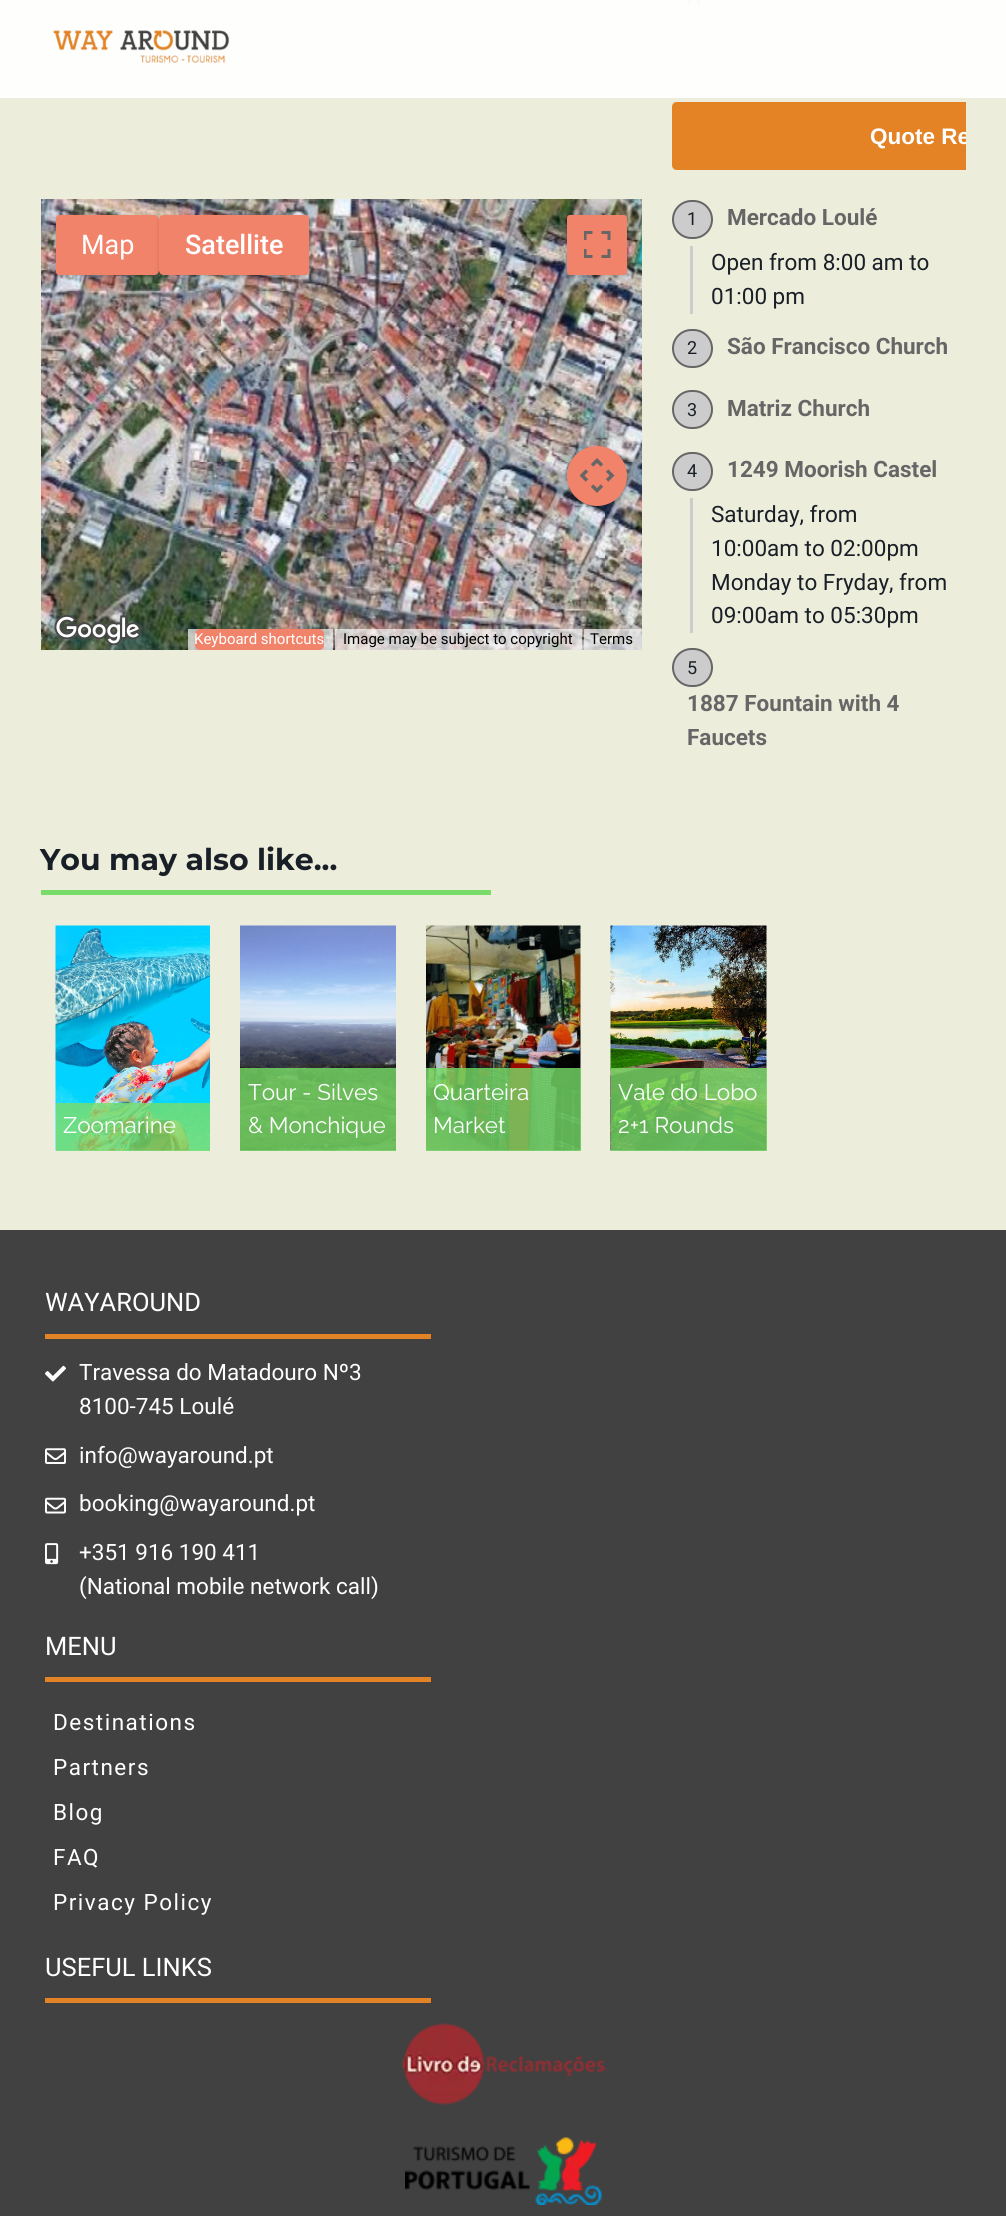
import math
import cairo



def draw_spaced(context, x, y, s, letter, word):
    context.move_to(x, y)
    for ch in s:
        context.show_text(ch)
        context.rel_move_to(letter + word * (ch == ' '), 0)


def rounded_rect(context, x, y, w, h, r):
    context.new_sub_path()
    for i, (u, v) in enumerate([(x + w - r, y + h - r), (x + r, y + h - r), (x + r, y + r), (x + w - r, y + r)]):
        context.arc(u, v, r, i * math.pi / 2, (i + 1) * math.pi / 2)
    context.close_path()


def draw_shadow(context, x, y, w, h, r, blur, alpha):
    context.push_group_with_content(cairo.Content.ALPHA)
    context.set_operator(cairo.Operator.SOURCE)
    for i in range(15, -16, -2):
        e = blur * i / 6
        if min(w, h) + 2 * e > 0:
            context.set_source_rgba(0, 0, 0, alpha * math.erfc((i - 1) / 8.5) / 2)
            rounded_rect(context, x - e, y - e, w + 2 * e, h + 2 * e, max(0, min(r + e + blur * .6, min(w, h) / 2 + e)))
            context.fill()
    context.mask(context.pop_group())


def draw_image(context, path, x, y, w, h):
    context.save()
    context.set_source_surface(cairo.ImageSurface.create_from_png(path), x, y)
    context.rectangle(x, y, w, h)
    context.fill()
    context.restore()


def draw(context):
    context.set_source_rgb(237 / 255, 237 / 255, 220 / 255)
    context.paint()
    context.set_source_rgb(254 / 255, 254 / 255, 253 / 255)
    context.rectangle(0, 0, 1006, 98)
    context.fill()
    draw_image(context, "images/1.png", 53, 30, 177, 33)
    draw_image(context, "images/2.png", 679, 0, 31, 5)
    context.set_source_rgb(227 / 255, 131 / 255, 37 / 255)
    context.new_path()
    context.move_to(677, 102)
    context.line_to(966, 102)
    context.line_to(966, 170)
    context.line_to(677, 170)
    context.curve_to(674, 170, 672, 168, 672, 165)
    context.line_to(672, 107)
    context.curve_to(672, 104, 674, 102, 677, 102)
    context.close_path()
    context.fill()
    draw_image(context, "images/3.png", 41, 199, 180, 263)
    draw_image(context, "images/4.png", 221, 199, 384, 263)
    draw_image(context, "images/5.png", 605, 199, 37, 263)
    draw_image(context, "images/6.png", 41, 462, 180, 188)
    draw_image(context, "images/7.png", 221, 462, 384, 188)
    draw_image(context, "images/8.png", 605, 462, 37, 188)
    context.set_source_rgb(0, 0, 0)
    draw_shadow(context, 57, 218, 101, 57, 3, 3, 0.3)
    context.set_source_rgb(242 / 255, 131 / 255, 107 / 255)
    context.new_path()
    context.move_to(59, 215)
    context.line_to(154, 215)
    context.curve_to(157, 215, 159, 217, 159, 220)
    context.line_to(159, 270)
    context.curve_to(159, 273, 157, 275, 154, 275)
    context.line_to(59, 275)
    context.curve_to(57.5, 275, 56, 273.5, 56, 272)
    context.line_to(56, 218)
    context.curve_to(56, 216.5, 57.5, 215, 59, 215)
    context.close_path()
    context.fill()
    context.set_source_rgb(0, 0, 0)
    draw_shadow(context, 161, 218, 147, 57, 3, 3, 0.3)
    context.set_source_rgb(242 / 255, 131 / 255, 107 / 255)
    context.new_path()
    context.move_to(164, 215)
    context.line_to(306, 215)
    context.curve_to(307.5, 215, 309, 216.5, 309, 218)
    context.line_to(309, 272)
    context.curve_to(309, 273.5, 307.5, 275, 306, 275)
    context.line_to(164, 275)
    context.curve_to(161, 275, 159, 273, 159, 270)
    context.line_to(159, 220)
    context.curve_to(159, 217, 161, 215, 164, 215)
    context.close_path()
    context.fill()
    context.set_source_rgb(0, 0, 0)
    draw_shadow(context, 569, 218, 57, 57, 1.5, 3, 0.3)
    context.set_source_rgb(242 / 255, 131 / 255, 107 / 255)
    rounded_rect(context, 567, 215, 60, 60, 3)
    context.fill()
    draw_image(context, "images/9.png", 584, 231, 27, 27)
    context.set_source_rgb(0, 0, 0)
    draw_shadow(context, 569, 449, 57, 57, 28.5, 3, 0.3)
    context.set_source_rgb(242 / 255, 131 / 255, 107 / 255)
    context.arc(597, 476, 30, 0, 2 * math.pi)
    context.fill()
    draw_image(context, "images/10.png", 579, 458, 36, 35)
    draw_image(context, "images/11.png", 54, 614, 87, 32)
    context.set_source_rgba(245 / 255, 245 / 255, 245 / 255, 0.7)
    context.rectangle(188, 629, 145, 21)
    context.fill()
    context.set_source_rgb(242 / 255, 131 / 255, 107 / 255)
    rounded_rect(context, 195, 629, 129, 21, 5)
    context.fill()
    context.set_source_rgba(245 / 255, 245 / 255, 245 / 255, 0.7)
    context.rectangle(335, 629, 247, 21)
    context.fill()
    context.rectangle(584, 629, 58, 21)
    context.fill()
    context.set_source_rgb(204 / 255, 204 / 255, 204 / 255)
    rounded_rect(context, 673, 201, 39, 37, 18.5)
    context.fill_preserve()
    context.set_source_rgb(102 / 255, 102 / 255, 102 / 255)
    context.stroke()
    context.set_source_rgb(204 / 255, 204 / 255, 204 / 255)
    context.rectangle(690, 246, 3, 68)
    context.fill()
    rounded_rect(context, 673, 330, 39, 37, 18.5)
    context.fill_preserve()
    context.set_source_rgb(102 / 255, 102 / 255, 102 / 255)
    context.stroke()
    context.set_source_rgb(204 / 255, 204 / 255, 204 / 255)
    rounded_rect(context, 673, 391, 39, 37, 18.5)
    context.fill_preserve()
    context.set_source_rgb(102 / 255, 102 / 255, 102 / 255)
    context.stroke()
    context.set_source_rgb(204 / 255, 204 / 255, 204 / 255)
    rounded_rect(context, 673, 453, 39, 37, 18.5)
    context.fill_preserve()
    context.set_source_rgb(102 / 255, 102 / 255, 102 / 255)
    context.stroke()
    context.set_source_rgb(204 / 255, 204 / 255, 204 / 255)
    context.rectangle(690, 498, 3, 135)
    context.fill()
    rounded_rect(context, 673, 649, 39, 37, 18.5)
    context.fill_preserve()
    context.set_source_rgb(102 / 255, 102 / 255, 102 / 255)
    context.stroke()
    context.set_source_rgb(119 / 255, 221 / 255, 104 / 255)
    context.rectangle(41, 890, 450, 5)
    context.fill()
    draw_image(context, "images/12.png", 55, 925, 155, 226)
    context.set_source_rgba(119 / 255, 221 / 255, 104 / 255, 0.8)
    context.rectangle(56, 1103, 154, 48)
    context.fill()
    draw_image(context, "images/13.png", 240, 925, 156, 226)
    context.rectangle(240, 1068, 156, 83)
    context.fill()
    draw_image(context, "images/14.png", 426, 925, 155, 226)
    context.rectangle(426, 1068, 155, 83)
    context.fill()
    draw_image(context, "images/15.png", 610, 925, 157, 226)
    context.rectangle(611, 1068, 156, 83)
    context.fill()
    context.set_source_rgb(65 / 255, 65 / 255, 65 / 255)
    context.rectangle(0, 1230, 1006, 986)
    context.fill()
    context.set_source_rgb(227 / 255, 131 / 255, 37 / 255)
    context.rectangle(45, 1334, 386, 5)
    context.fill()
    draw_image(context, "images/16.png", 45, 1365, 21, 17)
    draw_image(context, "images/17.png", 45, 1448, 21, 16)
    draw_image(context, "images/18.png", 45, 1497, 21, 17)
    draw_image(context, "images/19.png", 45, 1543, 14, 22)
    context.rectangle(45, 1677, 386, 5)
    context.fill()
    context.rectangle(45, 1998, 386, 5)
    context.fill()
    draw_image(context, "images/20.png", 401, 2023, 206, 82)
    draw_image(context, "images/21.png", 405, 2137, 197, 68)
    context.save()
    context.rectangle(41, 0, 925, 200)
    context.clip()
    context.select_font_face("Liberation Sans", cairo.FontSlant.NORMAL, cairo.FontWeight.BOLD)
    context.set_font_size(22.5)
    context.set_source_rgb(1, 1, 1)
    context.move_to(870, 144)
    context.show_text("Quote Re")
    context.restore()
    context.select_font_face("Roboto")
    context.set_font_size(27)
    context.set_source_rgb(1, 1, 1)
    context.move_to(81, 254)
    context.show_text("Map")
    context.select_font_face("Roboto Medium")
    context.move_to(185, 254)
    context.show_text("Satellite")
    context.select_font_face("Roboto")
    context.set_font_size(15)
    context.move_to(194, 644)
    context.show_text("Keyboard shortcuts")
    context.set_source_rgb(0, 0, 0)
    context.move_to(343, 644)
    context.show_text("Image may be subject to copyright")
    context.move_to(590, 644)
    context.show_text("Terms")
    context.set_font_size(18)
    context.set_source_rgb(25 / 255, 31 / 255, 38 / 255)
    context.move_to(687, 225)
    context.show_text("1")
    context.select_font_face("Roboto", cairo.FontSlant.NORMAL, cairo.FontWeight.BOLD)
    context.set_font_size(22.5)
    context.set_source_rgb(102 / 255, 102 / 255, 102 / 255)
    context.move_to(727, 225)
    context.show_text("Mercado Loulé")
    context.select_font_face("Roboto")
    context.set_source_rgb(25 / 255, 31 / 255, 38 / 255)
    context.move_to(711, 270)
    context.show_text("Open from 8:00 am to")
    context.move_to(711, 304)
    context.show_text("01:00 pm")
    context.set_font_size(18)
    context.move_to(687, 354)
    context.show_text("2")
    context.select_font_face("Roboto", cairo.FontSlant.NORMAL, cairo.FontWeight.BOLD)
    context.set_font_size(22.5)
    context.set_source_rgb(102 / 255, 102 / 255, 102 / 255)
    context.move_to(727, 354)
    context.show_text("São Francisco Church")
    context.select_font_face("Roboto")
    context.set_font_size(18)
    context.set_source_rgb(25 / 255, 31 / 255, 38 / 255)
    context.move_to(687, 416)
    context.show_text("3")
    context.select_font_face("Roboto", cairo.FontSlant.NORMAL, cairo.FontWeight.BOLD)
    context.set_font_size(22.5)
    context.set_source_rgb(102 / 255, 102 / 255, 102 / 255)
    context.move_to(727, 416)
    context.show_text("Matriz Church")
    context.select_font_face("Roboto")
    context.set_font_size(18)
    context.set_source_rgb(25 / 255, 31 / 255, 38 / 255)
    context.move_to(687, 477)
    context.show_text("4")
    context.select_font_face("Roboto", cairo.FontSlant.NORMAL, cairo.FontWeight.BOLD)
    context.set_font_size(22.5)
    context.set_source_rgb(102 / 255, 102 / 255, 102 / 255)
    context.move_to(727, 477)
    context.show_text("1249 Moorish Castel")
    context.select_font_face("Roboto")
    context.set_source_rgb(25 / 255, 31 / 255, 38 / 255)
    context.move_to(711, 522)
    context.show_text("Saturday, from")
    context.move_to(711, 556)
    context.show_text("10:00am to 02:00pm")
    context.move_to(711, 590)
    context.show_text("Monday to Fryday, from")
    context.move_to(711, 623)
    context.show_text("09:00am to 05:30pm")
    context.set_font_size(18)
    context.move_to(687, 674)
    context.show_text("5")
    context.select_font_face("Roboto", cairo.FontSlant.NORMAL, cairo.FontWeight.BOLD)
    context.set_font_size(22.5)
    context.set_source_rgb(102 / 255, 102 / 255, 102 / 255)
    context.move_to(687, 711)
    context.show_text("1887 Fountain with 4")
    context.move_to(687, 745)
    context.show_text("Faucets")
    context.select_font_face("Montserrat Thin")
    context.set_font_size(30)
    context.set_source_rgb(25 / 255, 31 / 255, 38 / 255)
    context.move_to(40, 870)
    context.show_text("You may also like...")
    context.select_font_face("Raleway Thin")
    context.set_font_size(22.5)
    context.set_source_rgb(1, 1, 1)
    context.move_to(63, 1133)
    context.show_text("Zoomarine")
    context.move_to(248, 1100)
    context.show_text("Tour - Silves")
    context.move_to(248, 1133)
    context.show_text("& Monchique")
    context.move_to(433, 1100)
    context.show_text("Quarteira")
    context.move_to(433, 1133)
    context.show_text("Market")
    context.move_to(618, 1100)
    context.show_text("Vale do Lobo")
    context.move_to(618, 1133)
    context.show_text("2+1 Rounds")
    context.select_font_face("Roboto")
    context.set_font_size(25.5)
    context.move_to(45, 1311)
    context.show_text("WAYAROUND")
    context.set_font_size(22.5)
    context.move_to(79, 1380)
    context.show_text("Travessa do Matadouro Nº3")
    context.move_to(79, 1414)
    context.show_text("8100-745 Loulé")
    context.move_to(79, 1463)
    context.show_text("info@wayaround.pt")
    context.move_to(79, 1511)
    context.show_text("booking@wayaround.pt")
    context.move_to(79, 1560)
    context.show_text("+351 916 190 411")
    context.move_to(79, 1594)
    context.show_text("(National mobile network call)")
    context.set_font_size(25.5)
    context.move_to(45, 1655)
    context.show_text("MENU")
    context.set_font_size(22.5)
    draw_spaced(context, 53, 1730, "Destinations", 1.5, 0)
    draw_spaced(context, 53, 1775, "Partners", 1.5, 0)
    draw_spaced(context, 53, 1820, "Blog", 1.5, 0)
    draw_spaced(context, 53, 1865, "FAQ", 1.5, 0)
    draw_spaced(context, 53, 1910, "Privacy Policy", 1.5, 0)
    context.set_font_size(25.5)
    context.move_to(45, 1976)
    context.show_text("USEFUL LINKS")


surface = cairo.ImageSurface(cairo.Format.RGB24, 1006, 2216)
context = cairo.Context(surface)
options = cairo.FontOptions()
options.set_hint_metrics(cairo.HintMetrics.OFF)
options.set_hint_style(cairo.HintStyle.NONE)
context.set_font_options(options)
context.set_miter_limit(4)
draw(context)
surface.write_to_png("out.png")
